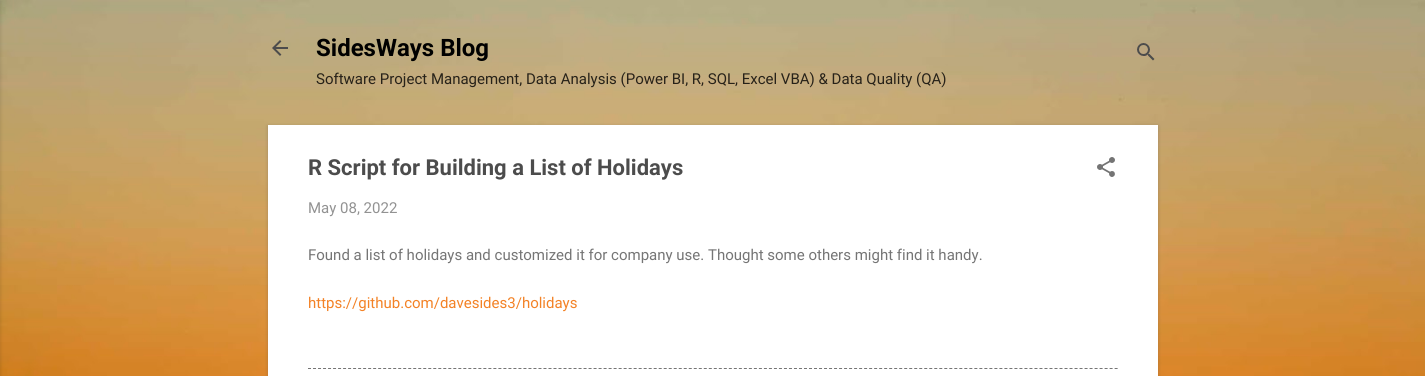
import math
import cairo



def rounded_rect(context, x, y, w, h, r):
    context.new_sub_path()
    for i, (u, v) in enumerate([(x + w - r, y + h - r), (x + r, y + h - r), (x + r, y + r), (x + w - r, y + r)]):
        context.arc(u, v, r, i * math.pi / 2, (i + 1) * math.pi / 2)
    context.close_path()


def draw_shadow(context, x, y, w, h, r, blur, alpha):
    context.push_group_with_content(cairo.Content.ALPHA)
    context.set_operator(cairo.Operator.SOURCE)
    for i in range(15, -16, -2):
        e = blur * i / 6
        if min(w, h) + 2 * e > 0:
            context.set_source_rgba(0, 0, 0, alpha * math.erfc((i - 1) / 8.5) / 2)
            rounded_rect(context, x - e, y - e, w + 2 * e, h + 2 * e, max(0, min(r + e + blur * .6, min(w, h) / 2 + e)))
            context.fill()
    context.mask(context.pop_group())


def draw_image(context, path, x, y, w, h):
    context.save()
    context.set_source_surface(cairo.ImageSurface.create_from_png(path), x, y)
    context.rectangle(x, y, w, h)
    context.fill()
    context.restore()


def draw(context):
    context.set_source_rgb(1, 1, 1)
    context.paint()
    draw_image(context, "images/1.png", 0, 0, 1425, 376)
    context.set_source_rgb(0, 0, 0)
    draw_shadow(context, -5, 1, 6, 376, 0, 1.5, 0.1)
    draw_image(context, "images/2.png", 272, 40, 16, 16)
    draw_image(context, "images/3.png", 1137, 43, 18, 18)
    context.set_source_rgb(78 / 255, 73 / 255, 70 / 255)
    draw_shadow(context, 268, 126, 890, 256, 0, 2, 0.3)
    context.set_source_rgb(1, 1, 1)
    context.rectangle(268, 125, 890, 251)
    context.fill()
    draw_image(context, "images/4.png", 1097, 157, 18, 20)
    context.new_path()
    context.move_to(308, 368.5)
    context.line_to(1118, 368.5)
    context.set_source_rgb(117 / 255, 117 / 255, 117 / 255)
    context.set_line_width(1)
    context.set_dash([3, 2.01])
    context.stroke()
    context.select_font_face("Roboto", cairo.FontSlant.NORMAL, cairo.FontWeight.BOLD)
    context.set_font_size(24)
    context.set_source_rgb(0, 0, 0)
    context.move_to(316, 56)
    context.show_text("SidesWays Blog")
    context.select_font_face("Roboto")
    context.set_font_size(15)
    context.set_source_rgb(39 / 255, 34 / 255, 25 / 255)
    context.move_to(316, 84)
    context.show_text("Software Project Management, Data Analysis (Power BI, R, SQL, Excel VBA) & Data Quality (QA)")
    context.select_font_face("Roboto", cairo.FontSlant.NORMAL, cairo.FontWeight.BOLD)
    context.set_font_size(22)
    context.set_source_rgb(76 / 255, 76 / 255, 76 / 255)
    context.move_to(308, 175)
    context.show_text("R Script for Building a List of Holidays")
    context.select_font_face("Roboto")
    context.set_font_size(15)
    context.set_source_rgb(146 / 255, 146 / 255, 146 / 255)
    context.move_to(308, 213)
    context.show_text("May 08, 2022")
    context.set_source_rgb(117 / 255, 117 / 255, 117 / 255)
    context.move_to(308, 260)
    context.show_text("Found a list of holidays and customized it for company use. Thought some others might find it handy.")
    context.set_source_rgb(243 / 255, 130 / 255, 38 / 255)
    context.move_to(308, 308)
    context.show_text("https://github.com/davesides3/holidays")


surface = cairo.ImageSurface(cairo.Format.RGB24, 1425, 376)
context = cairo.Context(surface)
options = cairo.FontOptions()
options.set_hint_metrics(cairo.HintMetrics.OFF)
options.set_hint_style(cairo.HintStyle.NONE)
context.set_font_options(options)
context.set_miter_limit(4)
draw(context)
surface.write_to_png("out.png")
